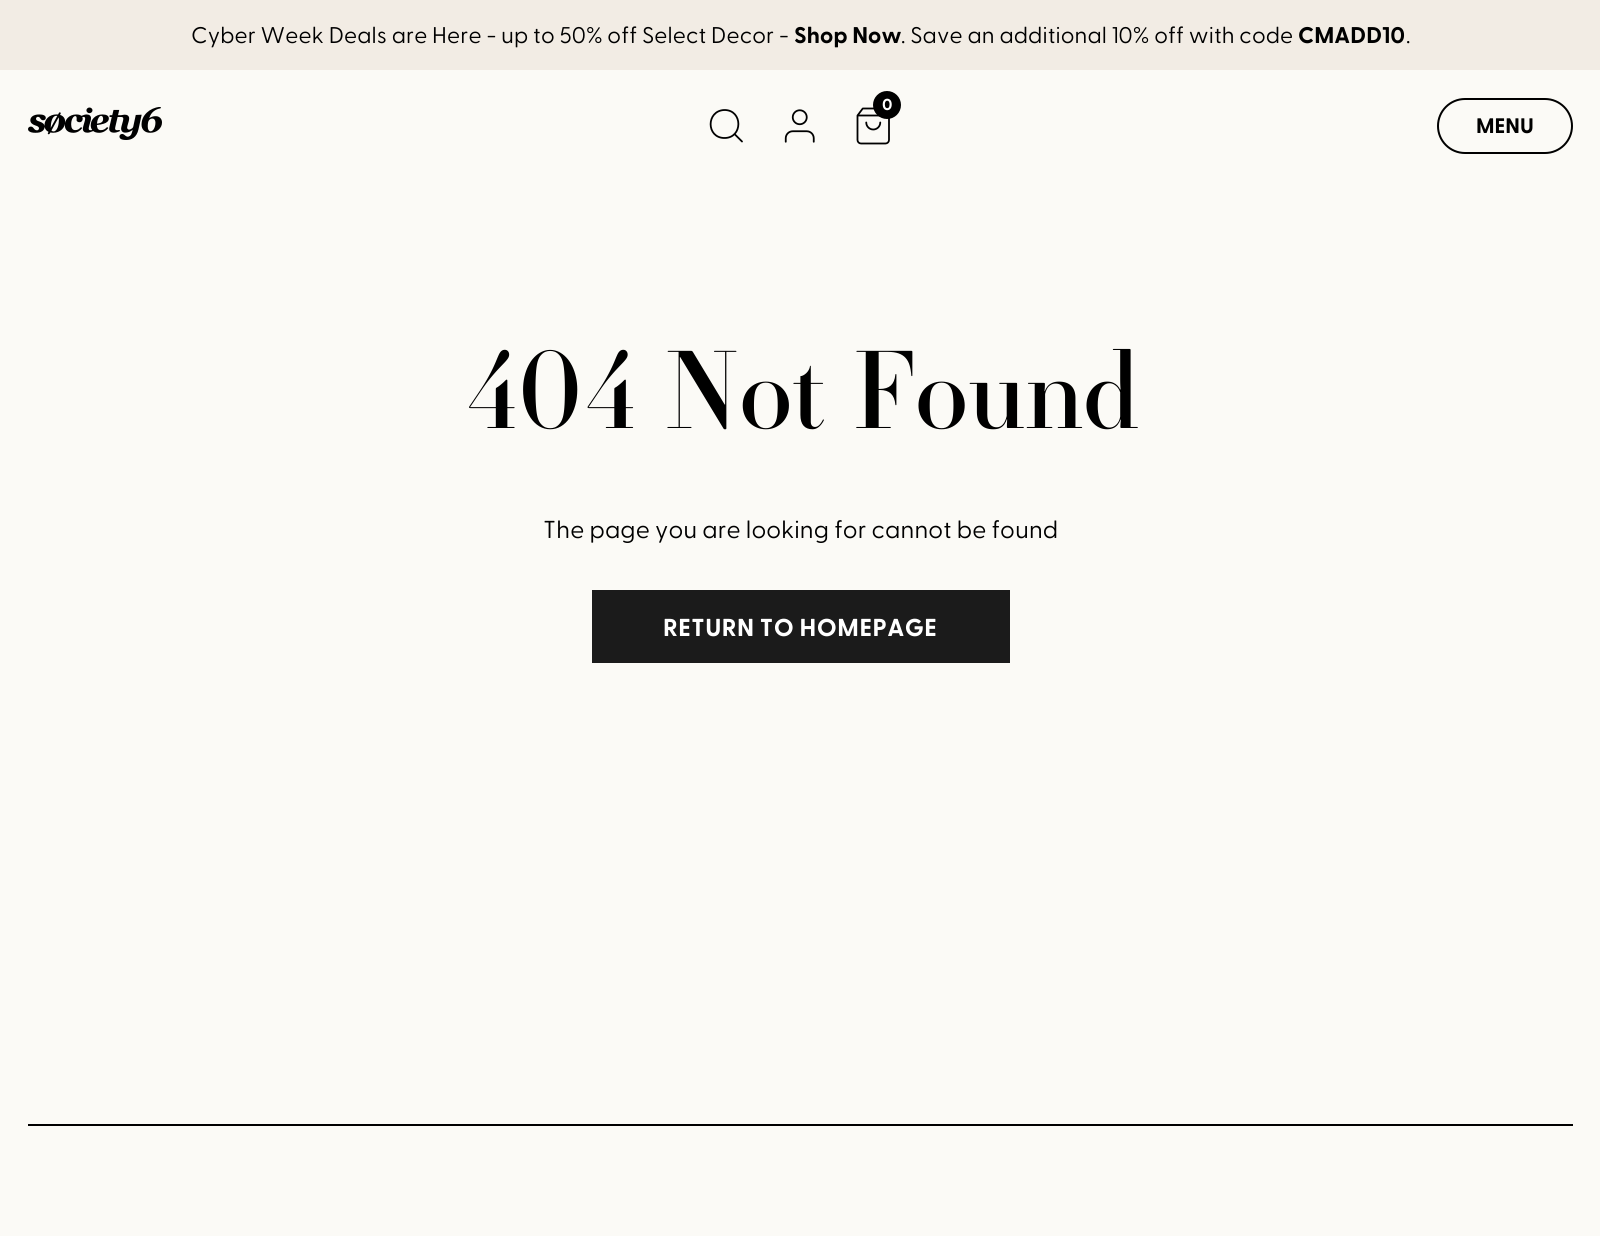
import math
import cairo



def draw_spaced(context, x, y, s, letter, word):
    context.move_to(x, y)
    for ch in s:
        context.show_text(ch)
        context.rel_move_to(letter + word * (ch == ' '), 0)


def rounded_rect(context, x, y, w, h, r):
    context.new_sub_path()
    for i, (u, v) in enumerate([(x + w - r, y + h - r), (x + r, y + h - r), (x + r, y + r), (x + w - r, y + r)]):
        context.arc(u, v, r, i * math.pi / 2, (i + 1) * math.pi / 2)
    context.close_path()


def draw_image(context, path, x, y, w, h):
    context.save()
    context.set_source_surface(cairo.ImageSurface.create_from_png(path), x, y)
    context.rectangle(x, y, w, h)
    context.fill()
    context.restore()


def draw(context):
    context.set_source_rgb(251 / 255, 250 / 255, 246 / 255)
    context.paint()
    context.set_source_rgb(242 / 255, 236 / 255, 228 / 255)
    context.rectangle(0, 0, 1600, 70)
    context.fill()
    draw_image(context, "images/1.png", 856, 107, 34, 38)
    context.set_source_rgb(0, 0, 0)
    context.arc(887, 105, 14, 0, 2 * math.pi)
    context.fill()
    context.new_path()
    context.move_to(724.5, 138)
    context.curve_to(743, 138, 743, 110, 724.5, 110)
    context.curve_to(706, 110.5, 706, 138, 724.5, 138)
    context.close_path()
    context.move_to(742, 141.5)
    context.line_to(734.5, 134)
    context.set_line_width(1.8)
    context.set_line_cap(cairo.LineCap.ROUND)
    context.set_line_join(cairo.LineJoin.ROUND)
    context.stroke()
    draw_image(context, "images/2.png", 784, 109, 31, 34)
    draw_image(context, "images/3.png", 28, 107, 134, 33)
    rounded_rect(context, 1438, 99, 134, 54, 27)
    context.set_line_width(2)
    context.set_line_cap(cairo.LineCap.BUTT)
    context.set_line_join(cairo.LineJoin.MITER)
    context.stroke()
    context.set_source_rgb(27 / 255, 27 / 255, 27 / 255)
    context.rectangle(592, 590, 418, 73)
    context.fill()
    context.set_source_rgb(0, 0, 0)
    context.rectangle(28, 1124, 1545, 2)
    context.fill()
    context.select_font_face("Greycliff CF")
    context.set_font_size(22.75)
    draw_spaced(context, 191, 43, "Cyber Week Deals are Here - up to 50% off Select Decor -", 0.12, 0)
    context.select_font_face("Greycliff CF", cairo.FontSlant.NORMAL, cairo.FontWeight.BOLD)
    draw_spaced(context, 794, 43, "Shop Now", 0.12, 0)
    context.select_font_face("Greycliff CF")
    draw_spaced(context, 901, 43, ". Save an additional 10% off with code", 0.12, 0)
    context.select_font_face("Greycliff CF", cairo.FontSlant.NORMAL, cairo.FontWeight.BOLD)
    draw_spaced(context, 1298, 43, "CMADD10", 0.12, 0)
    context.select_font_face("Greycliff CF")
    draw_spaced(context, 1406, 43, ".", 0.12, 0)
    context.select_font_face("Greycliff CF", cairo.FontSlant.NORMAL, cairo.FontWeight.BOLD)
    context.set_font_size(16)
    context.set_source_rgb(1, 1, 1)
    context.move_to(882, 110)
    context.show_text("0")
    context.set_font_size(21)
    context.set_source_rgb(0, 0, 0)
    context.move_to(1476, 133)
    context.show_text("MENU")
    context.select_font_face("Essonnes")
    context.set_font_size(105)
    draw_spaced(context, 464, 428, "404 Not Found", -1, 0)
    context.select_font_face("Greycliff CF")
    context.set_font_size(24.5)
    draw_spaced(context, 543, 538, "The page you are looking for cannot be found", 0.12, 0)
    context.select_font_face("Greycliff CF", cairo.FontSlant.NORMAL, cairo.FontWeight.BOLD)
    context.set_source_rgb(1, 1, 1)
    draw_spaced(context, 663, 636, "RETURN TO HOMEPAGE", 0.5, 0)


surface = cairo.ImageSurface(cairo.Format.RGB24, 1600, 1236)
context = cairo.Context(surface)
options = cairo.FontOptions()
options.set_hint_metrics(cairo.HintMetrics.OFF)
options.set_hint_style(cairo.HintStyle.NONE)
context.set_font_options(options)
context.set_miter_limit(4)
draw(context)
surface.write_to_png("out.png")
